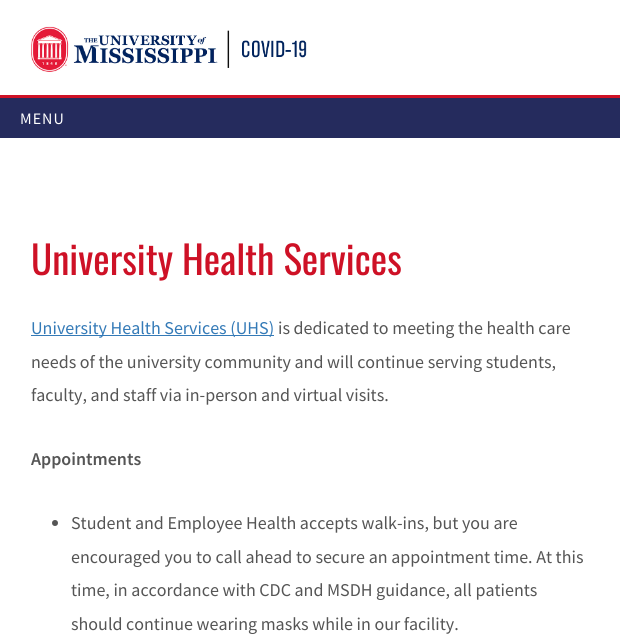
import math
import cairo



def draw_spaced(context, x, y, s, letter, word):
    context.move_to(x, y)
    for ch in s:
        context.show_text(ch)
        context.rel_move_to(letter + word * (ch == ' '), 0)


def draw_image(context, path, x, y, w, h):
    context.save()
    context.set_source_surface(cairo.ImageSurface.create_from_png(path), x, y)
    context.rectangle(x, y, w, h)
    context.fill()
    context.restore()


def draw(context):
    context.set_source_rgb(1, 1, 1)
    context.paint()
    draw_image(context, "images/1.png", 31, 26, 276, 46)
    context.set_source_rgb(37 / 255, 43 / 255, 93 / 255)
    context.rectangle(0, 98, 620, 40)
    context.fill()
    context.set_source_rgb(206 / 255, 17 / 255, 38 / 255)
    context.rectangle(0, 95, 620, 3)
    context.fill()
    context.set_source_rgb(52 / 255, 122 / 255, 183 / 255)
    context.rectangle(31, 335, 243, 1)
    context.fill()
    context.set_source_rgb(85 / 255, 85 / 255, 85 / 255)
    context.arc(55, 523, 3, 0, 2 * math.pi)
    context.fill()
    context.select_font_face("Source Sans Pro")
    context.set_font_size(16)
    context.set_source_rgb(1, 1, 1)
    draw_spaced(context, 20, 124, "MENU", 1, 0)
    context.select_font_face("Oswald")
    context.set_font_size(39)
    context.set_source_rgb(206 / 255, 17 / 255, 38 / 255)
    context.move_to(31, 275)
    context.show_text("University Health Services")
    context.select_font_face("Source Sans Pro")
    context.set_font_size(18)
    context.set_source_rgb(52 / 255, 122 / 255, 183 / 255)
    context.move_to(31, 334)
    context.show_text("University Health Services (UHS)")
    context.set_source_rgb(85 / 255, 85 / 255, 85 / 255)
    context.move_to(278, 334)
    context.show_text("is dedicated to meeting the health care")
    context.move_to(31, 368)
    context.show_text("needs of the university community and will continue serving students,")
    context.move_to(31, 401)
    context.show_text("faculty, and staff via in-person and virtual visits.")
    context.select_font_face("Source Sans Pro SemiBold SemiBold")
    context.move_to(31, 465)
    context.show_text("Appointments")
    context.select_font_face("Source Sans Pro")
    context.move_to(71, 529)
    context.show_text("Student and Employee Health accepts walk-ins, but you are")
    context.move_to(71, 563)
    context.show_text("encouraged you to call ahead to secure an appointment time. At this")
    context.move_to(71, 596)
    context.show_text("time, in accordance with CDC and MSDH guidance, all patients")
    context.move_to(71, 630)
    context.show_text("should continue wearing masks while in our facility.")


surface = cairo.ImageSurface(cairo.Format.RGB24, 620, 642)
context = cairo.Context(surface)
options = cairo.FontOptions()
options.set_hint_metrics(cairo.HintMetrics.OFF)
options.set_hint_style(cairo.HintStyle.NONE)
context.set_font_options(options)
context.set_miter_limit(4)
draw(context)
surface.write_to_png("out.png")
